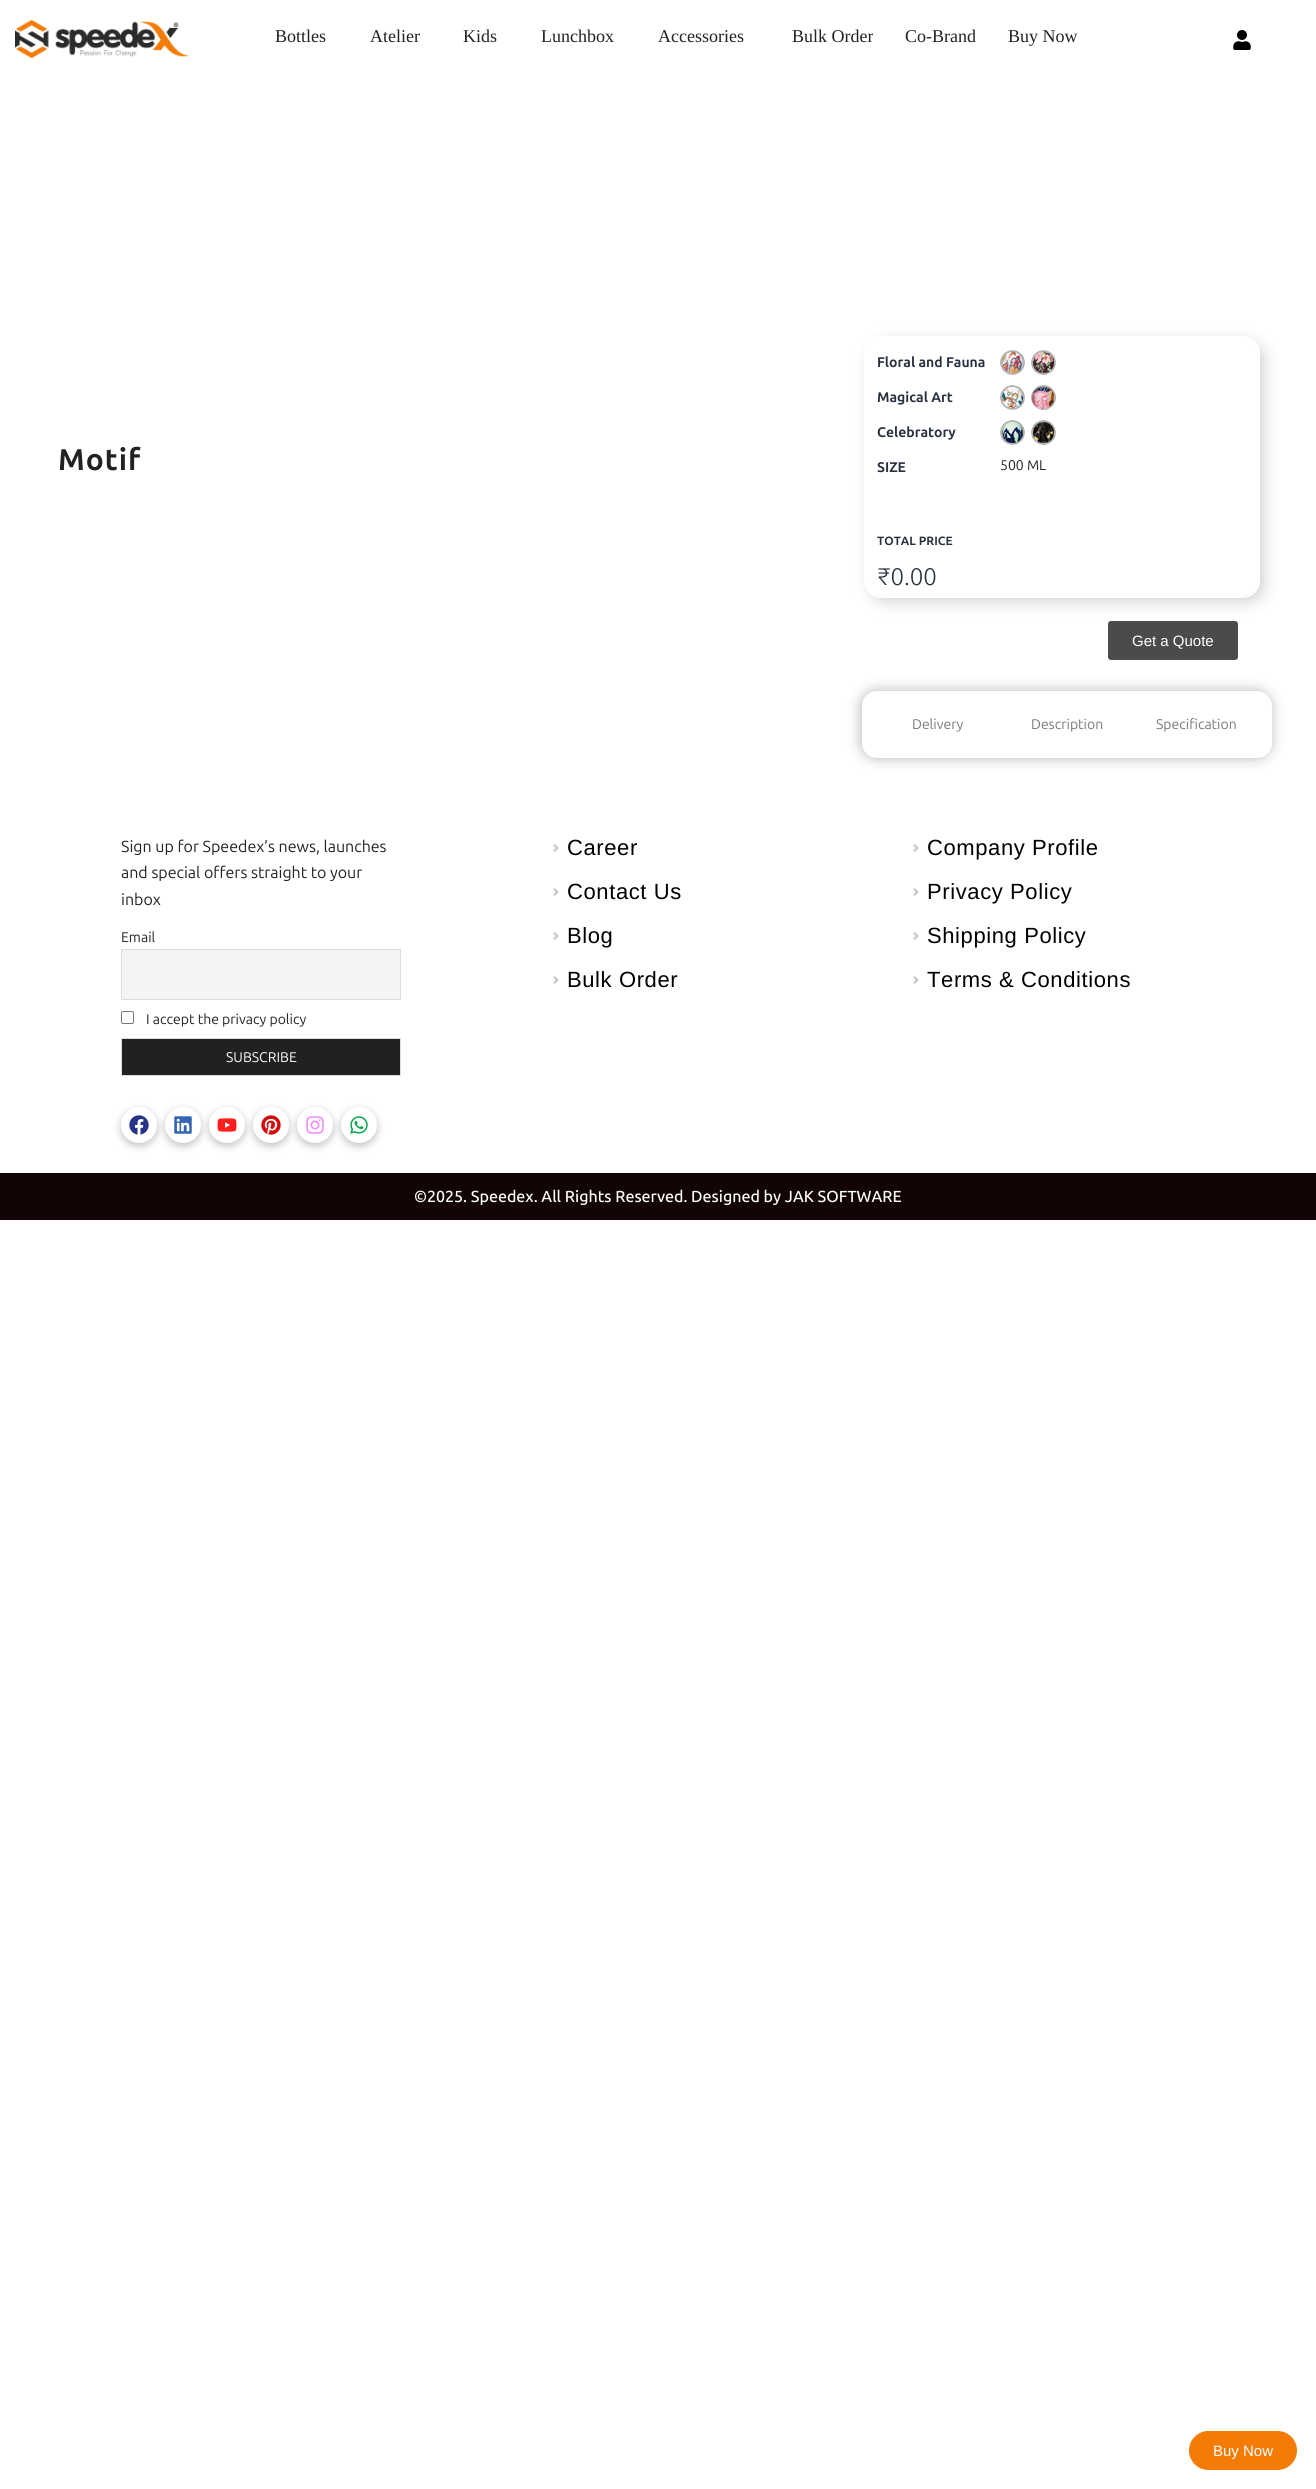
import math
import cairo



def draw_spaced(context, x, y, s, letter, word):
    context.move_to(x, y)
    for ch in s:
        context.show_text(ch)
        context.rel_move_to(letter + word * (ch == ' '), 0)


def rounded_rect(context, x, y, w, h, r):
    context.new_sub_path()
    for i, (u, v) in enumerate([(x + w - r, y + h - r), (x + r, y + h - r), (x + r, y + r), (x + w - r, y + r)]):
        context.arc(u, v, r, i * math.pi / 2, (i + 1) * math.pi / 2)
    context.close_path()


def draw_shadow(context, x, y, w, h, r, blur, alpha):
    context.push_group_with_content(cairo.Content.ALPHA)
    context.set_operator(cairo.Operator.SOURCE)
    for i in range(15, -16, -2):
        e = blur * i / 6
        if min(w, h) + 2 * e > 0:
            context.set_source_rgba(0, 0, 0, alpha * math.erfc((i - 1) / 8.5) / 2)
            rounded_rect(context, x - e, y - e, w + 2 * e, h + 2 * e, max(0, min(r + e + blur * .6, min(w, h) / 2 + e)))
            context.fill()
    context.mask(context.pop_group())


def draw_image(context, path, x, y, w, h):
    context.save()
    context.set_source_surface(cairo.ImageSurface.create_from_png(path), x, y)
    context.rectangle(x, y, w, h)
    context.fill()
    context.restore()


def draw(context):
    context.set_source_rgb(1, 1, 1)
    context.paint()
    draw_image(context, "images/1.png", 15, 20, 174, 38)
    draw_image(context, "images/2.png", 1233, 30, 18, 20)
    context.set_source_rgb(0, 0, 0)
    draw_shadow(context, 871, 343, 392, 258, 15, 8, 0.2)
    rounded_rect(context, 865, 337, 394, 260, 16)
    context.set_source_rgb(1, 1, 1)
    context.stroke()
    rounded_rect(context, 866.5, 338.5, 391, 257, 14.5)
    context.fill_preserve()
    context.set_line_width(1)
    context.stroke()
    draw_image(context, "images/3.png", 1000, 350, 25, 25)
    draw_image(context, "images/4.png", 1031, 350, 25, 25)
    draw_image(context, "images/5.png", 1000, 385, 25, 25)
    draw_image(context, "images/6.png", 1031, 385, 25, 25)
    draw_image(context, "images/7.png", 1000, 420, 25, 25)
    draw_image(context, "images/8.png", 1031, 420, 25, 25)
    context.set_source_rgb(75 / 255, 75 / 255, 75 / 255)
    rounded_rect(context, 1108, 621, 130, 39, 3)
    context.fill()
    context.set_source_rgb(0, 0, 0)
    draw_shadow(context, 861, 691, 410, 67, 15, 7, 0.29)
    context.set_source_rgb(1, 1, 1)
    rounded_rect(context, 862.5, 691.5, 409, 66, 14.5)
    context.fill_preserve()
    context.stroke()
    context.set_source_rgb(244 / 255, 244 / 255, 244 / 255)
    context.rectangle(121.5, 949.5, 279, 50)
    context.fill_preserve()
    context.set_source_rgb(221 / 255, 221 / 255, 221 / 255)
    context.stroke()
    rounded_rect(context, 121.5, 1011.5, 12, 12, 1.5)
    context.set_source_rgb(118 / 255, 118 / 255, 118 / 255)
    context.stroke()
    context.set_source_rgb(33 / 255, 33 / 255, 33 / 255)
    context.rectangle(121.5, 1038.5, 279, 37)
    context.fill_preserve()
    context.set_source_rgb(221 / 255, 221 / 255, 221 / 255)
    context.stroke()
    context.set_source_rgb(0, 0, 0)
    draw_shadow(context, 121, 1110, 36, 36, 18, 4, 0.24)
    context.set_source_rgb(1, 1, 1)
    context.arc(139, 1125, 18, 0, 2 * math.pi)
    context.fill()
    draw_image(context, "images/9.png", 129, 1115, 20, 20)
    context.set_source_rgb(0, 0, 0)
    draw_shadow(context, 165, 1110, 36, 36, 18, 4, 0.24)
    context.set_source_rgb(1, 1, 1)
    context.arc(183, 1125, 18, 0, 2 * math.pi)
    context.fill()
    draw_image(context, "images/10.png", 174, 1116, 18, 18)
    context.set_source_rgb(0, 0, 0)
    draw_shadow(context, 209, 1110, 36, 36, 18, 4, 0.24)
    context.set_source_rgb(1, 1, 1)
    context.arc(227, 1125, 18, 0, 2 * math.pi)
    context.fill()
    draw_image(context, "images/11.png", 217, 1118, 20, 14)
    context.set_source_rgb(0, 0, 0)
    draw_shadow(context, 253, 1110, 36, 36, 18, 4, 0.24)
    context.set_source_rgb(1, 1, 1)
    context.arc(271, 1125, 18, 0, 2 * math.pi)
    context.fill()
    draw_image(context, "images/12.png", 261, 1115, 20, 20)
    context.set_source_rgb(0, 0, 0)
    draw_shadow(context, 297, 1110, 36, 36, 18, 4, 0.24)
    context.set_source_rgb(1, 1, 1)
    context.arc(315, 1125, 18, 0, 2 * math.pi)
    context.fill()
    draw_image(context, "images/13.png", 306, 1116, 18, 18)
    context.set_source_rgb(0, 0, 0)
    draw_shadow(context, 341, 1110, 36, 36, 18, 4, 0.24)
    context.set_source_rgb(1, 1, 1)
    context.arc(359, 1125, 18, 0, 2 * math.pi)
    context.fill()
    draw_image(context, "images/14.png", 350, 1116, 18, 18)
    draw_image(context, "images/15.png", 553, 844, 6, 8)
    draw_image(context, "images/15.png", 553, 888, 6, 8)
    draw_image(context, "images/15.png", 553, 932, 6, 8)
    draw_image(context, "images/15.png", 553, 976, 6, 8)
    draw_image(context, "images/15.png", 913, 844, 6, 8)
    draw_image(context, "images/15.png", 913, 888, 6, 8)
    draw_image(context, "images/15.png", 913, 932, 6, 8)
    draw_image(context, "images/15.png", 913, 976, 6, 8)
    context.set_source_rgb(19 / 255, 5 / 255, 5 / 255)
    context.rectangle(0, 1173, 1316, 47)
    context.fill()
    context.set_source_rgb(244 / 255, 124 / 255, 6 / 255)
    rounded_rect(context, 1189, 2431, 108, 39, 19.5)
    context.fill()
    context.select_font_face("Liberation Serif")
    context.set_font_size(18)
    context.set_source_rgb(34 / 255, 34 / 255, 34 / 255)
    context.move_to(275, 42)
    context.show_text("Bottles")
    context.move_to(370, 42)
    context.show_text("Atelier")
    context.move_to(463, 42)
    context.show_text("Kids")
    context.move_to(541, 42)
    context.show_text("Lunchbox")
    context.move_to(658, 42)
    context.show_text("Accessories")
    context.move_to(792, 42)
    context.show_text("Bulk Order")
    context.move_to(905, 42)
    context.show_text("Co-Brand")
    context.move_to(1008, 42)
    context.show_text("Buy Now")
    context.select_font_face("Ubuntu", cairo.FontSlant.NORMAL, cairo.FontWeight.BOLD)
    context.set_font_size(30)
    draw_spaced(context, 58, 470, "Motif", 1, 0)
    context.set_font_size(14)
    context.set_source_rgb(40 / 255, 48 / 255, 61 / 255)
    context.move_to(877, 367)
    context.show_text("Floral and Fauna")
    context.move_to(877, 402)
    context.show_text("Magical Art")
    context.move_to(877, 437)
    context.show_text("Celebratory")
    context.move_to(877, 472)
    context.show_text("SIZE")
    context.select_font_face("Ubuntu")
    context.set_source_rgb(34 / 255, 34 / 255, 34 / 255)
    context.move_to(1000, 470)
    context.show_text("500 ML")
    context.select_font_face("Ubuntu", cairo.FontSlant.NORMAL, cairo.FontWeight.BOLD)
    context.set_font_size(12)
    context.set_source_rgb(40 / 255, 48 / 255, 61 / 255)
    context.move_to(877, 545)
    context.show_text("TOTAL PRICE")
    context.select_font_face("Ubuntu Light")
    context.set_font_size(24)
    context.move_to(877, 585)
    context.show_text("₹0.00")
    context.select_font_face("Liberation Sans")
    context.set_font_size(15)
    context.set_source_rgb(1, 1, 1)
    context.move_to(1132, 646)
    context.show_text("Get a Quote")
    context.select_font_face("Ubuntu")
    context.set_font_size(14)
    context.set_source_rgb(120 / 255, 120 / 255, 120 / 255)
    context.move_to(912, 729)
    context.show_text("Delivery")
    context.move_to(1031, 729)
    context.show_text("Description")
    context.move_to(1156, 729)
    context.show_text("Specification")
    context.set_font_size(16)
    context.set_source_rgb(34 / 255, 34 / 255, 34 / 255)
    context.move_to(121, 852)
    context.show_text("Sign up for Speedex’s news, launches")
    context.move_to(121, 878)
    context.show_text("and special offers straight to your")
    context.move_to(121, 905)
    context.show_text("inbox")
    context.set_font_size(14)
    context.move_to(121, 942)
    context.show_text("Email")
    context.move_to(146, 1024)
    context.show_text("I accept the privacy policy")
    context.set_source_rgb(1, 1, 1)
    context.move_to(226, 1062)
    context.show_text("SUBSCRIBE")
    context.select_font_face("Liberation Sans")
    context.set_font_size(22)
    context.set_source_rgb(0, 0, 0)
    draw_spaced(context, 567, 855, "Career", 0.6, 0)
    draw_spaced(context, 567, 899, "Contact Us", 0.6, 0)
    draw_spaced(context, 567, 943, "Blog", 0.6, 0)
    draw_spaced(context, 567, 987, "Bulk Order", 0.6, 0)
    draw_spaced(context, 927, 855, "Company Profile", 0.6, 0)
    draw_spaced(context, 927, 899, "Privacy Policy", 0.6, 0)
    draw_spaced(context, 927, 943, "Shipping Policy", 0.6, 0)
    draw_spaced(context, 927, 987, "Terms & Conditions", 0.6, 0)
    context.select_font_face("Ubuntu Medium")
    context.set_font_size(16)
    context.set_source_rgb(1, 1, 1)
    context.move_to(414, 1202)
    context.show_text("©2025. Speedex. All Rights Reserved. Designed by JAK SOFTWARE")
    context.select_font_face("Liberation Sans")
    context.set_font_size(15)
    context.move_to(1213, 2456)
    context.show_text("Buy Now")


surface = cairo.ImageSurface(cairo.Format.RGB24, 1316, 2489)
context = cairo.Context(surface)
options = cairo.FontOptions()
options.set_hint_metrics(cairo.HintMetrics.OFF)
options.set_hint_style(cairo.HintStyle.NONE)
context.set_font_options(options)
context.set_miter_limit(4)
draw(context)
surface.write_to_png("out.png")
